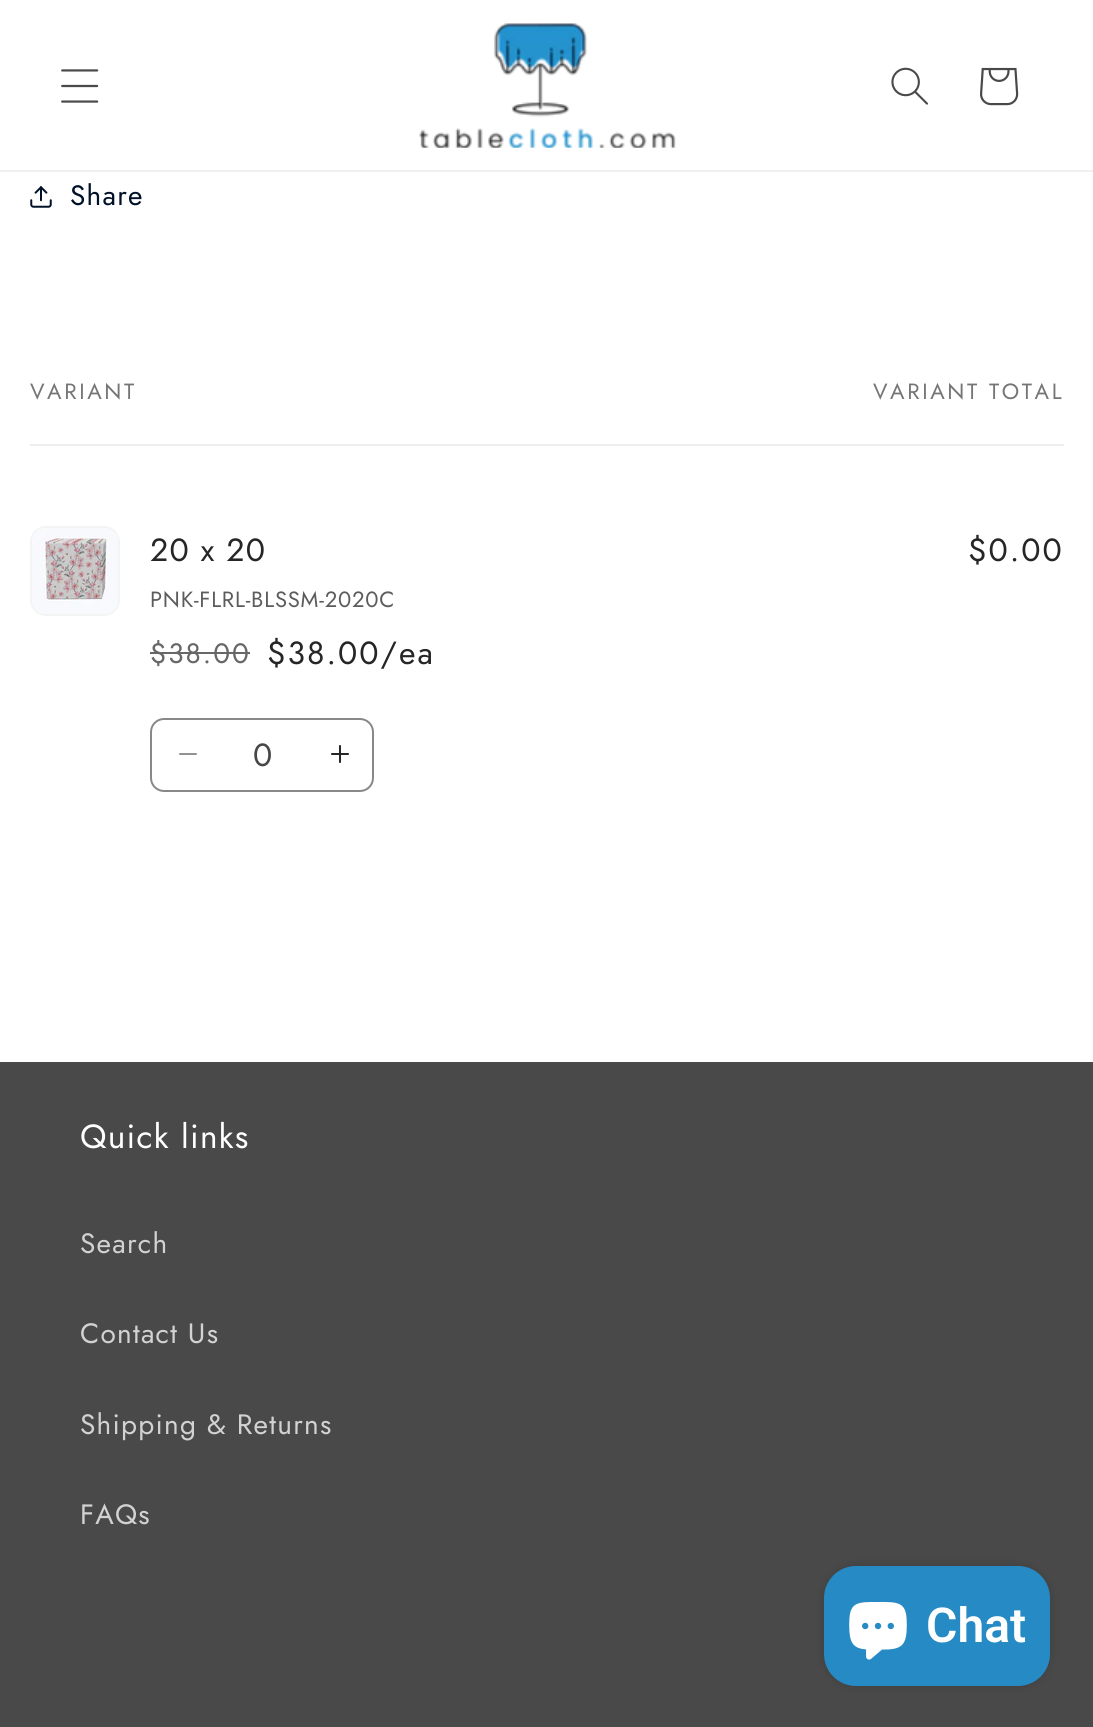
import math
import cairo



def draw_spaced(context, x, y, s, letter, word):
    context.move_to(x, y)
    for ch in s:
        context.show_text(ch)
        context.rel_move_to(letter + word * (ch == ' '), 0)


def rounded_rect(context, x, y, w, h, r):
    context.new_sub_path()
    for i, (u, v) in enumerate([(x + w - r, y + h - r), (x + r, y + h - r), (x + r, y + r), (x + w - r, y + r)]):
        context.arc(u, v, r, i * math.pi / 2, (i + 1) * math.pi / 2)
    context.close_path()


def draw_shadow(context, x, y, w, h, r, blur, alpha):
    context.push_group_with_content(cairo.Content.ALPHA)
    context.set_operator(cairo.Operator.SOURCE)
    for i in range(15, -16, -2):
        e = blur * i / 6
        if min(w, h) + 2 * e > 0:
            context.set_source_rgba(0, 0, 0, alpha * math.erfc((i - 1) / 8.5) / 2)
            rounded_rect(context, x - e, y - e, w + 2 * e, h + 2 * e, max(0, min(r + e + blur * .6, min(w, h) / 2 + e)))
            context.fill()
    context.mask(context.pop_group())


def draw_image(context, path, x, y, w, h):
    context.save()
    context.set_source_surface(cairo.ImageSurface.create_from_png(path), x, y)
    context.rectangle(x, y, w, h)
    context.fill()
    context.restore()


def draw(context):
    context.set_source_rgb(1, 1, 1)
    context.paint()
    context.set_source_rgb(240 / 255, 240 / 255, 240 / 255)
    context.rectangle(0, 170, 1093, 2)
    context.fill()
    draw_image(context, "images/1.png", 61, 69, 38, 34)
    draw_image(context, "images/2.png", 419, 23, 257, 125)
    draw_image(context, "images/3.png", 891, 67, 37, 38)
    draw_image(context, "images/4.png", 980, 67, 39, 39)
    draw_image(context, "images/5.png", 30, 186, 22, 22)
    context.set_source_rgb(238 / 255, 238 / 255, 238 / 255)
    context.rectangle(30, 444, 1034, 2)
    context.fill()
    rounded_rect(context, 31, 527, 88, 88, 15)
    context.set_source_rgb(244 / 255, 244 / 255, 244 / 255)
    context.stroke()
    draw_image(context, "images/6.png", 32, 528, 86, 86)
    context.set_source_rgb(103 / 255, 103 / 255, 103 / 255)
    context.rectangle(150, 652, 100, 2)
    context.fill()
    draw_image(context, "images/7.png", 179, 753, 18, 2)
    draw_image(context, "images/8.png", 331, 745, 18, 18)
    rounded_rect(context, 151, 719, 222, 72, 13)
    context.set_source_rgb(136 / 255, 136 / 255, 136 / 255)
    context.stroke()
    context.set_source_rgb(73 / 255, 73 / 255, 73 / 255)
    context.rectangle(0, 1062, 1093, 665)
    context.fill()
    context.set_source_rgb(0, 0, 0)
    draw_shadow(context, 824, 1566, 226, 120, 32, 5, 0.15)
    context.set_source_rgb(38 / 255, 138 / 255, 196 / 255)
    rounded_rect(context, 824, 1566, 226, 120, 32)
    context.fill()
    draw_image(context, "images/9.png", 849, 1602, 58, 58)
    context.select_font_face("Jost")
    context.set_font_size(28)
    context.set_source_rgb(0, 17 / 255, 40 / 255)
    draw_spaced(context, 70, 205, "Share", 1.25, 0)
    context.set_font_size(22)
    context.set_source_rgb(117 / 255, 117 / 255, 117 / 255)
    draw_spaced(context, 30, 399, "VARIANT", 2.6, 0)
    draw_spaced(context, 873, 399, "VARIANT TOTAL", 2.6, 0)
    context.set_font_size(32)
    context.set_source_rgb(38 / 255, 38 / 255, 38 / 255)
    draw_spaced(context, 150, 561, "20 x 20", 1.25, 0)
    context.set_font_size(22)
    context.set_source_rgb(92 / 255, 92 / 255, 92 / 255)
    draw_spaced(context, 150, 607, "PNK-FLRL-BLSSM-2020C", 0.8, 0)
    context.set_font_size(28)
    context.set_source_rgb(103 / 255, 103 / 255, 103 / 255)
    draw_spaced(context, 150, 663, "$38.00", 2, 0)
    context.set_font_size(32)
    context.set_source_rgb(38 / 255, 38 / 255, 38 / 255)
    draw_spaced(context, 267, 664, "$38.00/ea", 2, 0)
    draw_spaced(context, 968, 561, "$0.00", 2, 0)
    context.set_source_rgb(71 / 255, 71 / 255, 71 / 255)
    context.move_to(253, 766)
    context.show_text("0")
    context.set_font_size(33.5)
    context.set_source_rgb(1, 1, 1)
    draw_spaced(context, 80, 1148, "Quick links", 1.25, 0)
    context.set_font_size(28)
    context.set_source_rgb(210 / 255, 210 / 255, 210 / 255)
    draw_spaced(context, 80, 1253, "Search", 1.25, 0)
    draw_spaced(context, 80, 1343, "Contact Us", 1.25, 0)
    draw_spaced(context, 80, 1434, "Shipping & Returns", 1.25, 0)
    draw_spaced(context, 80, 1524, "FAQs", 1.25, 0)
    context.select_font_face("Roboto SemiBold")
    context.set_font_size(48)
    context.set_source_rgb(1, 1, 1)
    context.move_to(926, 1642)
    context.show_text("Chat")


surface = cairo.ImageSurface(cairo.Format.RGB24, 1093, 1727)
context = cairo.Context(surface)
options = cairo.FontOptions()
options.set_hint_metrics(cairo.HintMetrics.OFF)
options.set_hint_style(cairo.HintStyle.NONE)
context.set_font_options(options)
context.set_miter_limit(4)
draw(context)
surface.write_to_png("out.png")
